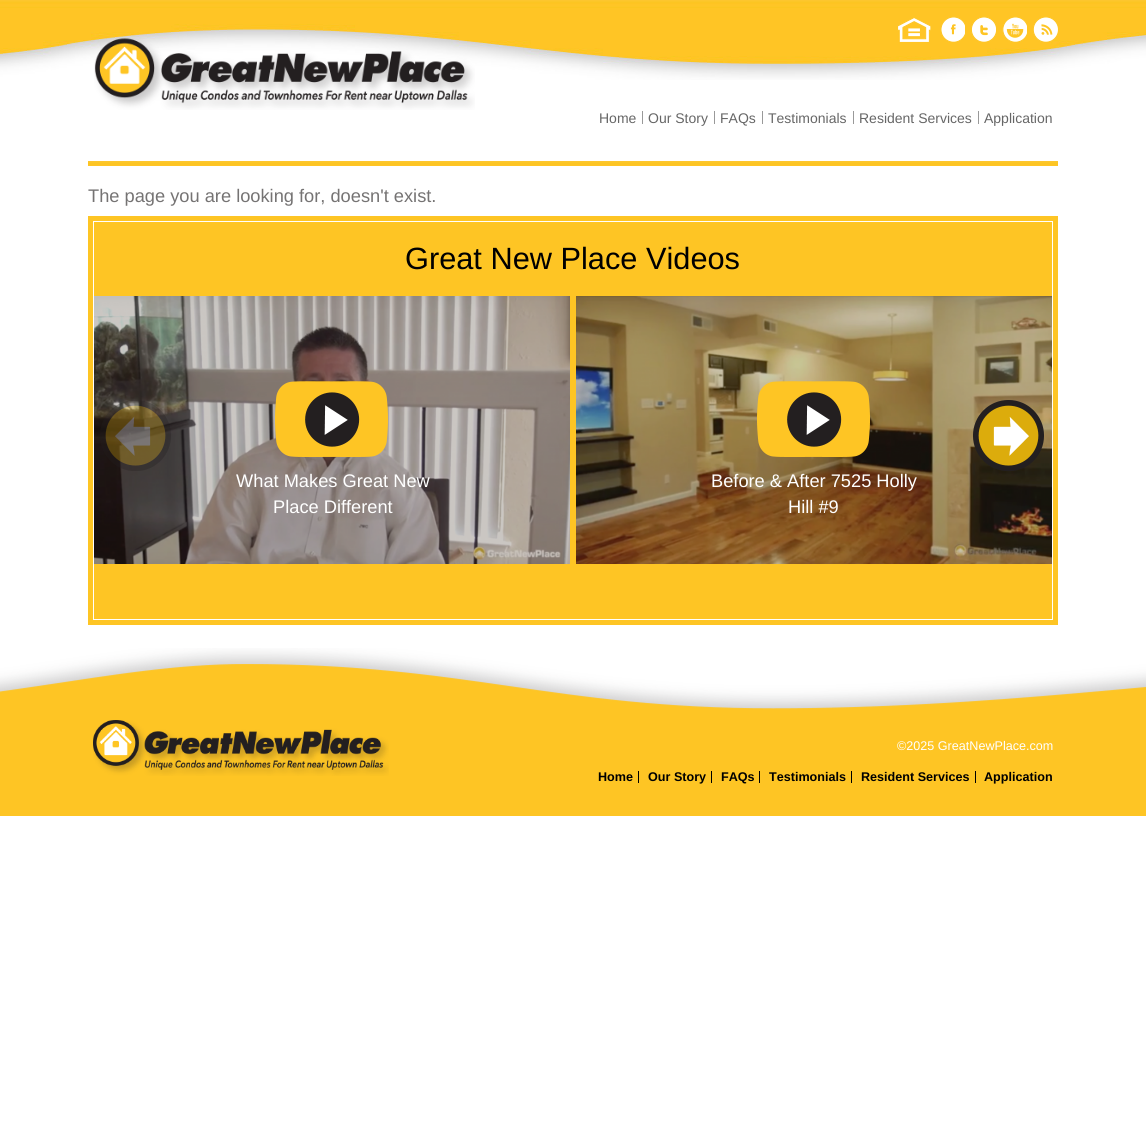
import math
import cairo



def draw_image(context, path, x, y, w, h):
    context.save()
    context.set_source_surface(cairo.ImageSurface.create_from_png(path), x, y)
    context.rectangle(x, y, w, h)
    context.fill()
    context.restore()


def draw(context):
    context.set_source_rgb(1, 1, 1)
    context.paint()
    draw_image(context, "images/1.png", 0, 0, 1146, 80)
    draw_image(context, "images/2.png", 897, 17, 34, 25)
    draw_image(context, "images/3.png", 940, 16, 25, 26)
    draw_image(context, "images/4.png", 971, 16, 25, 26)
    draw_image(context, "images/5.png", 1002, 16, 25, 26)
    draw_image(context, "images/6.png", 1033, 16, 25, 26)
    draw_image(context, "images/7.png", 94, 38, 381, 72)
    context.set_source_rgb(153 / 255, 153 / 255, 153 / 255)
    context.rectangle(642, 111, 1, 13)
    context.fill()
    context.rectangle(714, 111, 1, 13)
    context.fill()
    context.rectangle(762, 111, 1, 13)
    context.fill()
    context.rectangle(853, 111, 1, 13)
    context.fill()
    context.rectangle(978, 111, 1, 13)
    context.fill()
    draw_image(context, "images/8.png", 88, 161, 970, 5)
    context.set_source_rgb(254 / 255, 197 / 255, 36 / 255)
    context.rectangle(88, 216, 970, 409)
    context.fill()
    context.rectangle(93.5, 221.5, 959, 398)
    context.set_source_rgb(1, 1, 1)
    context.set_line_width(1)
    context.stroke()
    draw_image(context, "images/11.png", 94, 296, 476, 268)
    draw_image(context, "images/9.png", 100, 400, 71, 71)
    draw_image(context, "images/13.png", 576, 296, 476, 268)
    draw_image(context, "images/10.png", 973, 400, 71, 71)
    draw_image(context, "images/12.png", 275, 381, 113, 76)
    draw_image(context, "images/14.png", 757, 381, 113, 76)
    draw_image(context, "images/15.png", 0, 648, 1146, 168)
    draw_image(context, "images/16.png", 93, 720, 296, 56)
    context.set_source_rgb(0, 0, 0)
    context.rectangle(638, 771, 1, 12)
    context.fill()
    context.rectangle(711, 771, 1, 12)
    context.fill()
    context.rectangle(759, 771, 1, 12)
    context.fill()
    context.rectangle(851, 771, 1, 12)
    context.fill()
    context.rectangle(975, 771, 1, 12)
    context.fill()
    context.select_font_face("Liberation Sans")
    context.set_font_size(14)
    context.set_source_rgb(102 / 255, 102 / 255, 102 / 255)
    context.move_to(599, 123)
    context.show_text("Home")
    context.move_to(648, 123)
    context.show_text("Our Story")
    context.move_to(720, 123)
    context.show_text("FAQs")
    context.move_to(768, 123)
    context.show_text("Testimonials")
    context.move_to(859, 123)
    context.show_text("Resident Services")
    context.move_to(984, 123)
    context.show_text("Application")
    context.set_font_size(18.25)
    context.set_source_rgb(117 / 255, 115 / 255, 115 / 255)
    context.move_to(88, 202)
    context.show_text("The page you are looking for, doesn't exist.")
    context.set_font_size(30.75)
    context.set_source_rgb(0, 0, 0)
    context.move_to(405, 269)
    context.show_text("Great New Place Videos")
    context.set_font_size(18.25)
    context.set_source_rgb(1, 1, 1)
    context.move_to(236, 487)
    context.show_text("What Makes Great New")
    context.move_to(273, 513)
    context.show_text("Place Different")
    context.move_to(711, 487)
    context.show_text("Before & After 7525 Holly")
    context.move_to(788, 513)
    context.show_text("Hill #9")
    context.set_font_size(12.6)
    context.move_to(897, 750)
    context.show_text("©2025 GreatNewPlace.com")
    context.select_font_face("Liberation Sans", cairo.FontSlant.NORMAL, cairo.FontWeight.BOLD)
    context.set_source_rgb(0, 0, 0)
    context.move_to(598, 781)
    context.show_text("Home")
    context.move_to(648, 781)
    context.show_text("Our Story")
    context.move_to(721, 781)
    context.show_text("FAQs")
    context.move_to(769, 781)
    context.show_text("Testimonials")
    context.move_to(861, 781)
    context.show_text("Resident Services")
    context.move_to(984, 781)
    context.show_text("Application")


surface = cairo.ImageSurface(cairo.Format.RGB24, 1146, 1128)
context = cairo.Context(surface)
options = cairo.FontOptions()
options.set_hint_metrics(cairo.HintMetrics.OFF)
options.set_hint_style(cairo.HintStyle.NONE)
context.set_font_options(options)
context.set_miter_limit(4)
draw(context)
surface.write_to_png("out.png")
